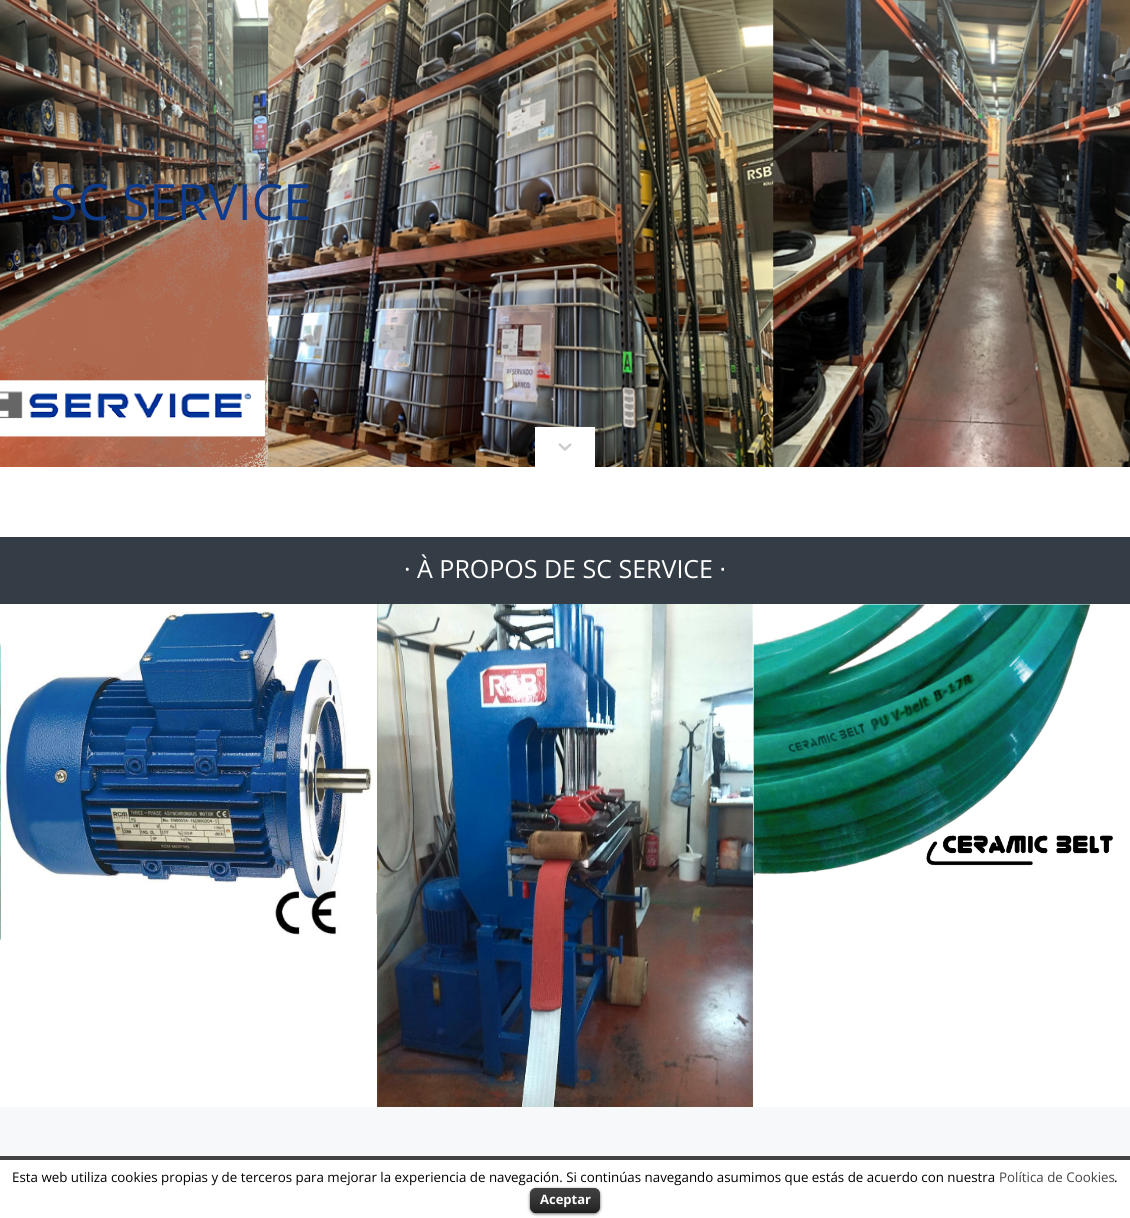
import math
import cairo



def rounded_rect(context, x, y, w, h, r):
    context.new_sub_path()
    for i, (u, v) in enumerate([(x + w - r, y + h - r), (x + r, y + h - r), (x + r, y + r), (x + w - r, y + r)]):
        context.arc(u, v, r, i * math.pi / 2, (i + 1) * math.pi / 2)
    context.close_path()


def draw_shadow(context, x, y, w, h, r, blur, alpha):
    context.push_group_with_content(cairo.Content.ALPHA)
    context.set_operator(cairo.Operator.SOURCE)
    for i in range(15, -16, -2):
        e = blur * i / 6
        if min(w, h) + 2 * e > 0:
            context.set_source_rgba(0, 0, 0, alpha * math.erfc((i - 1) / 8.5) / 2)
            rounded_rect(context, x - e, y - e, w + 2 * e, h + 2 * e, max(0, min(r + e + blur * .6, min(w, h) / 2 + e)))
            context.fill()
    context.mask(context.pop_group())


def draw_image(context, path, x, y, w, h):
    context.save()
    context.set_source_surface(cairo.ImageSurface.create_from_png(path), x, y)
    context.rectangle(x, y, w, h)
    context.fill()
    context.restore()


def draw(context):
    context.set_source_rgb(1, 1, 1)
    context.paint()
    draw_image(context, "images/1.png", 0, 0, 1130, 467)
    context.set_source_rgb(1, 1, 1)
    context.rectangle(535, 427, 60, 40)
    context.fill()
    draw_image(context, "images/2.png", 558, 443, 14, 8)
    context.set_source_rgb(52 / 255, 60 / 255, 69 / 255)
    context.rectangle(0, 537, 1130, 67)
    context.fill()
    draw_image(context, "images/3.png", 0, 611, 377, 330)
    draw_image(context, "images/4.png", 377, 604, 376, 503)
    draw_image(context, "images/5.png", 753, 604, 360, 272)
    context.set_source_rgb(247 / 255, 248 / 255, 249 / 255)
    context.rectangle(0, 1107, 1130, 49)
    context.fill()
    context.set_source_rgb(68 / 255, 68 / 255, 68 / 255)
    context.rectangle(0, 1156, 1130, 4)
    context.fill()
    context.set_source_rgb(0, 0, 0)
    draw_shadow(context, 530, 1189, 70, 25, 6, 1.5, 0.6)
    context.set_source_rgb(0, 0, 0)
    rounded_rect(context, 530, 1188, 70, 25, 6)
    context.fill()
    draw_image(context, "images/6.png", 530, 1188, 70, 25)
    context.set_source_rgba(0, 0, 0, 0.25)
    context.rectangle(533, 1212, 64, 1)
    context.fill()
    context.select_font_face("Open Sans")
    context.set_font_size(50)
    context.set_source_rgb(14 / 255, 60 / 255, 139 / 255)
    context.move_to(50, 220)
    context.show_text("SC SERVICE")
    context.set_font_size(25)
    context.set_source_rgb(1, 1, 1)
    context.move_to(404, 578)
    context.show_text("· À PROPOS DE SC SERVICE ·")
    context.set_font_size(13.33)
    context.set_source_rgb(0, 0, 0)
    context.move_to(12, 1182)
    context.show_text("Esta web utiliza cookies propias y de terceros para mejorar la experiencia de navegación. Si continúas navegando asumimos que estás de acuerdo con nuestra")
    context.set_source_rgb(68 / 255, 68 / 255, 68 / 255)
    context.move_to(999, 1182)
    context.show_text("Política de Cookies")
    context.set_source_rgb(0, 0, 0)
    context.move_to(1114, 1182)
    context.show_text(".")
    context.select_font_face("Open Sans", cairo.FontSlant.NORMAL, cairo.FontWeight.BOLD)
    context.set_font_size(13)
    context.set_source_rgb(1, 1, 1)
    context.move_to(540, 1204)
    context.show_text("Aceptar")


surface = cairo.ImageSurface(cairo.Format.RGB24, 1130, 1218)
context = cairo.Context(surface)
options = cairo.FontOptions()
options.set_hint_metrics(cairo.HintMetrics.OFF)
options.set_hint_style(cairo.HintStyle.NONE)
context.set_font_options(options)
context.set_miter_limit(4)
draw(context)
surface.write_to_png("out.png")
